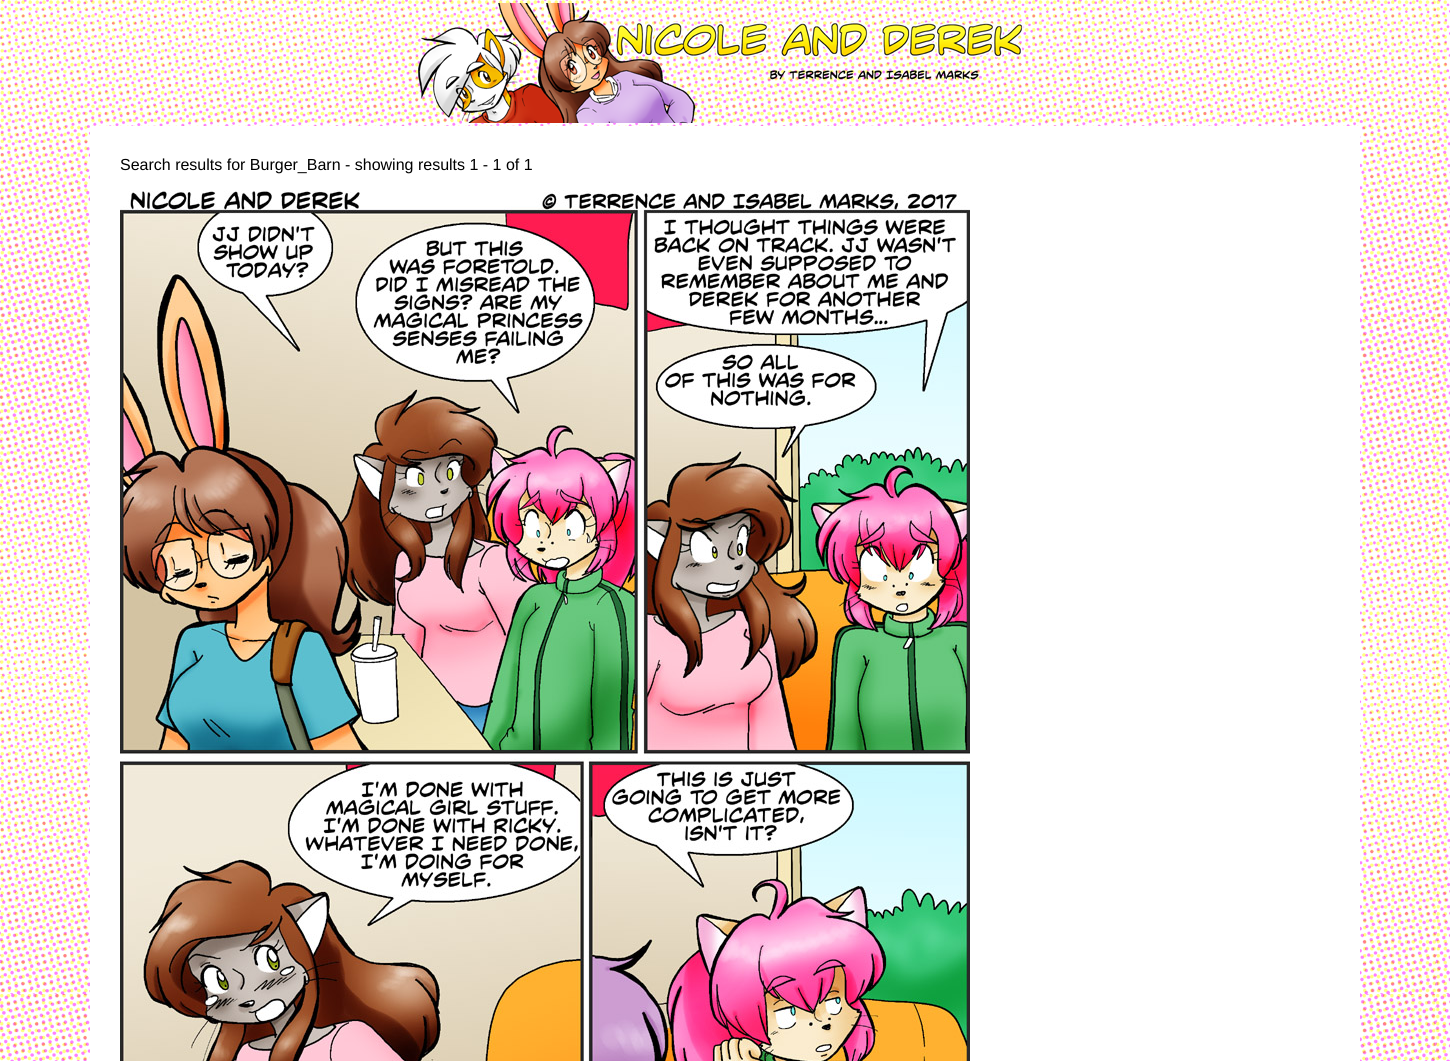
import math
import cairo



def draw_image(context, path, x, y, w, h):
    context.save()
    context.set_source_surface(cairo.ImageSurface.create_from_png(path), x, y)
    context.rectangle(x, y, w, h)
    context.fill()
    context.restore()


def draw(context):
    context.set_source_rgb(1, 1, 1)
    context.paint()
    draw_image(context, "images/1.png", 0, 0, 1450, 1061)
    draw_image(context, "images/2.png", 418, 3, 606, 120)
    context.set_source_rgb(1, 1, 1)
    context.rectangle(90, 126, 1270, 935)
    context.fill()
    draw_image(context, "images/3.png", 120, 190, 850, 871)
    context.select_font_face("Liberation Sans")
    context.set_font_size(16)
    context.set_source_rgb(0, 0, 0)
    context.move_to(120, 170)
    context.show_text("Search results for Burger_Barn - showing results 1 - 1 of 1")


surface = cairo.ImageSurface(cairo.Format.RGB24, 1450, 1061)
context = cairo.Context(surface)
options = cairo.FontOptions()
options.set_hint_metrics(cairo.HintMetrics.OFF)
options.set_hint_style(cairo.HintStyle.NONE)
context.set_font_options(options)
context.set_miter_limit(4)
draw(context)
surface.write_to_png("out.png")
